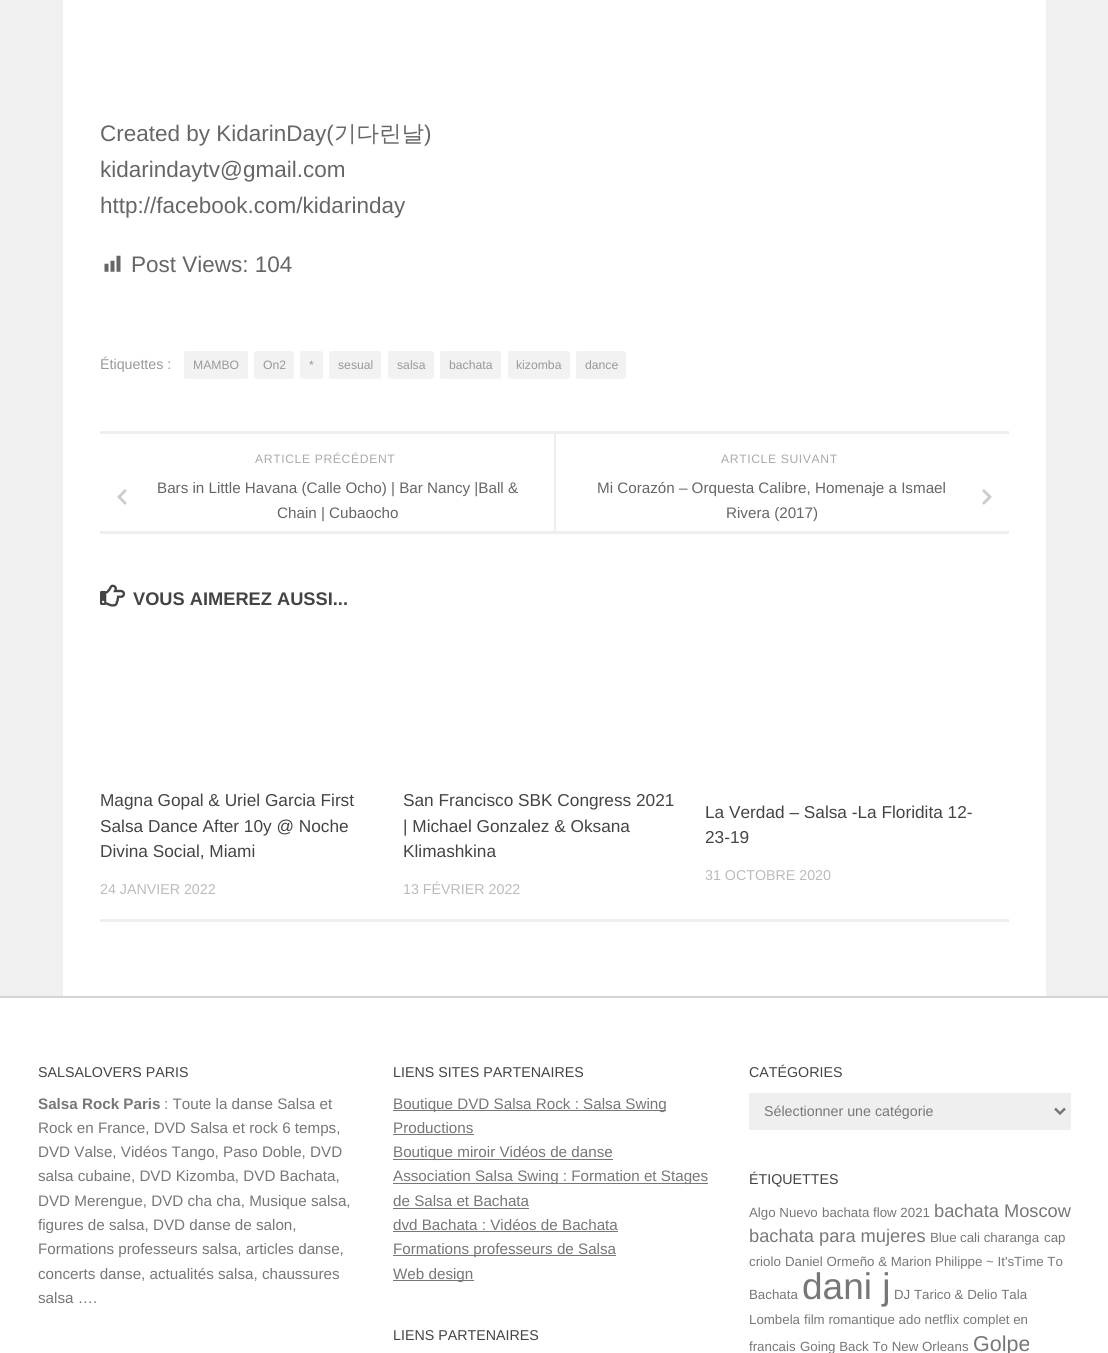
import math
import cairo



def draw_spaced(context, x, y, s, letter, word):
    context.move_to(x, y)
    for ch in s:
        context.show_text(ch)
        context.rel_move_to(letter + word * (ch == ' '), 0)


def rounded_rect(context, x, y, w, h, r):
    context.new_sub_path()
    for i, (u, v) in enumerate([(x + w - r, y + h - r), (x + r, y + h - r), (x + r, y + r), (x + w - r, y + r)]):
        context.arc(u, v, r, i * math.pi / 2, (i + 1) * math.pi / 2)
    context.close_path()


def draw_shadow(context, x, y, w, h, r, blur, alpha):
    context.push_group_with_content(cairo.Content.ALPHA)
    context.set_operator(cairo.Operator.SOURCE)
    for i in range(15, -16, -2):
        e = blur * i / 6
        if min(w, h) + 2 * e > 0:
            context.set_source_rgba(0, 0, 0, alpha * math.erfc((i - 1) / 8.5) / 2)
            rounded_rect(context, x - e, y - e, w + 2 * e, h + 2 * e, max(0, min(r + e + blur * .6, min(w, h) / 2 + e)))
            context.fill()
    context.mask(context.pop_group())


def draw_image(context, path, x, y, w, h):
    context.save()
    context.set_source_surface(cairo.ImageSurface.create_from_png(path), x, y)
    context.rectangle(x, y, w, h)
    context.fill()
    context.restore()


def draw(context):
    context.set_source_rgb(234 / 255, 234 / 255, 234 / 255)
    context.paint()
    context.set_source_rgb(0, 0, 0)
    draw_shadow(context, 0, -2, 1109, 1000, 0, 0.5, 0.1)
    context.set_source_rgb(1, 1, 1)
    context.rectangle(63, 0, 983, 996)
    context.fill()
    context.set_source_rgb(240 / 255, 240 / 255, 240 / 255)
    context.rectangle(0, 0, 63, 996)
    context.fill()
    draw_image(context, "images/1.png", 104, 255, 17, 17)
    context.set_source_rgb(242 / 255, 242 / 255, 242 / 255)
    rounded_rect(context, 184, 351, 64, 28, 2.5)
    context.fill()
    rounded_rect(context, 254, 351, 40, 28, 2.5)
    context.fill()
    rounded_rect(context, 300, 351, 23, 28, 2.5)
    context.fill()
    rounded_rect(context, 329, 351, 52, 28, 2.5)
    context.fill()
    rounded_rect(context, 388, 351, 46, 28, 2.5)
    context.fill()
    rounded_rect(context, 440, 351, 61, 28, 2.5)
    context.fill()
    rounded_rect(context, 508, 351, 62, 28, 2.5)
    context.fill()
    rounded_rect(context, 576, 351, 50, 28, 2.5)
    context.fill()
    context.set_source_rgb(238 / 255, 238 / 255, 238 / 255)
    context.rectangle(100, 431, 909, 3)
    context.fill()
    context.rectangle(100, 531, 909, 3)
    context.fill()
    draw_image(context, "images/2.png", 117, 489, 10, 16)
    context.rectangle(554, 434, 2, 97)
    context.fill()
    draw_image(context, "images/3.png", 982, 489, 10, 16)
    draw_image(context, "images/4.png", 100, 584, 26, 23)
    context.rectangle(100, 919, 909, 3)
    context.fill()
    context.set_source_rgb(240 / 255, 240 / 255, 240 / 255)
    context.rectangle(1046, 0, 62, 996)
    context.fill()
    context.set_source_rgb(1, 1, 1)
    context.rectangle(0, 998, 1108, 355)
    context.fill()
    context.set_source_rgb(119 / 255, 119 / 255, 119 / 255)
    context.rectangle(393, 1110, 273, 1)
    context.fill()
    context.rectangle(393, 1134, 81, 1)
    context.fill()
    context.rectangle(393, 1159, 220, 1)
    context.fill()
    context.rectangle(393, 1183, 315, 1)
    context.fill()
    context.rectangle(393, 1208, 136, 1)
    context.fill()
    context.rectangle(393, 1231, 225, 1)
    context.fill()
    context.rectangle(393, 1255, 223, 1)
    context.fill()
    context.rectangle(393, 1280, 81, 1)
    context.fill()
    context.set_source_rgb(239 / 255, 239 / 255, 239 / 255)
    context.rectangle(749, 1093, 322, 37)
    context.fill()
    context.new_path()
    context.move_to(1055, 1108.5)
    context.line_to(1060, 1113.5)
    context.line_to(1065, 1108.5)
    context.set_source_rgb(119 / 255, 119 / 255, 119 / 255)
    context.set_line_width(2.5)
    context.stroke()
    context.select_font_face("Liberation Sans")
    context.set_font_size(22.5)
    context.set_source_rgb(102 / 255, 102 / 255, 102 / 255)
    context.move_to(100, 141)
    context.show_text("Created by KidarinDay(")
    context.select_font_face("WenQuanYi Zen Hei Medium")
    context.move_to(334, 141)
    context.show_text("기다린날")
    context.select_font_face("Liberation Sans")
    context.move_to(424, 141)
    context.show_text(")")
    context.move_to(100, 177)
    context.show_text("kidarindaytv@gmail.com")
    context.move_to(100, 213)
    context.show_text("http://facebook.com/kidarinday")
    context.move_to(131, 272)
    context.show_text("Post Views: 104")
    context.set_font_size(14.25)
    context.set_source_rgb(153 / 255, 153 / 255, 153 / 255)
    context.move_to(100, 369)
    context.show_text("Étiquettes :")
    context.set_font_size(12.2)
    context.move_to(193, 369)
    context.show_text("MAMBO")
    context.move_to(263, 369)
    context.show_text("On2")
    context.move_to(309, 369)
    context.show_text("*")
    context.move_to(338, 369)
    context.show_text("sesual")
    context.move_to(397, 369)
    context.show_text("salsa")
    context.move_to(449, 369)
    context.show_text("bachata")
    context.move_to(516, 369)
    context.show_text("kizomba")
    context.move_to(585, 369)
    context.show_text("dance")
    context.set_source_rgb(170 / 255, 170 / 255, 170 / 255)
    draw_spaced(context, 255, 463, "ARTICLE PRÉCÉDENT", 0.6, 0)
    context.set_font_size(15.2)
    context.set_source_rgb(102 / 255, 102 / 255, 102 / 255)
    context.move_to(157, 493)
    context.show_text("Bars in Little Havana (Calle Ocho) | Bar Nancy |Ball &")
    context.move_to(277, 518)
    context.show_text("Chain | Cubaocho")
    context.set_font_size(12.2)
    context.set_source_rgb(170 / 255, 170 / 255, 170 / 255)
    draw_spaced(context, 721, 463, "ARTICLE SUIVANT", 0.6, 0)
    context.set_font_size(15.2)
    context.set_source_rgb(102 / 255, 102 / 255, 102 / 255)
    context.move_to(597, 493)
    context.show_text("Mi Corazón – Orquesta Calibre, Homenaje a Ismael")
    context.move_to(726, 518)
    context.show_text("Rivera (2017)")
    context.select_font_face("Liberation Sans", cairo.FontSlant.NORMAL, cairo.FontWeight.BOLD)
    context.set_font_size(18.25)
    context.set_source_rgb(68 / 255, 68 / 255, 68 / 255)
    context.move_to(133, 605)
    context.show_text("VOUS AIMEREZ AUSSI...")
    context.select_font_face("Liberation Sans")
    context.set_font_size(17.25)
    context.move_to(100, 806)
    context.show_text("Magna Gopal & Uriel Garcia First")
    context.move_to(100, 832)
    context.show_text("Salsa Dance After 10y @ Noche")
    context.move_to(100, 857)
    context.show_text("Divina Social, Miami")
    context.set_font_size(14.25)
    context.set_source_rgb(187 / 255, 187 / 255, 187 / 255)
    context.move_to(100, 894)
    context.show_text("24 JANVIER 2022")
    context.set_font_size(17.25)
    context.set_source_rgb(68 / 255, 68 / 255, 68 / 255)
    context.move_to(403, 806)
    context.show_text("San Francisco SBK Congress 2021")
    context.move_to(403, 832)
    context.show_text("| Michael Gonzalez & Oksana")
    context.move_to(403, 857)
    context.show_text("Klimashkina")
    context.set_font_size(14.25)
    context.set_source_rgb(187 / 255, 187 / 255, 187 / 255)
    context.move_to(403, 894)
    context.show_text("13 FÉVRIER 2022")
    context.set_font_size(17.25)
    context.set_source_rgb(68 / 255, 68 / 255, 68 / 255)
    context.move_to(705, 818)
    context.show_text("La Verdad – Salsa -La Floridita 12-")
    context.move_to(705, 843)
    context.show_text("23-19")
    context.set_font_size(14.25)
    context.set_source_rgb(187 / 255, 187 / 255, 187 / 255)
    context.move_to(705, 880)
    context.show_text("31 OCTOBRE 2020")
    context.set_source_rgb(68 / 255, 68 / 255, 68 / 255)
    context.move_to(38, 1077)
    context.show_text("SALSALOVERS PARIS")
    context.select_font_face("Liberation Sans", cairo.FontSlant.NORMAL, cairo.FontWeight.BOLD)
    context.set_font_size(15.2)
    context.set_source_rgb(119 / 255, 119 / 255, 119 / 255)
    context.move_to(38, 1109)
    context.show_text("Salsa Rock Paris")
    context.select_font_face("Liberation Sans")
    context.move_to(164, 1109)
    context.show_text(": Toute la danse Salsa et")
    context.move_to(38, 1133)
    context.show_text("Rock en France, DVD Salsa et rock 6 temps,")
    context.move_to(38, 1157)
    context.show_text("DVD Valse, Vidéos Tango, Paso Doble, DVD")
    context.move_to(38, 1181)
    context.show_text("salsa cubaine, DVD Kizomba, DVD Bachata,")
    context.move_to(38, 1206)
    context.show_text("DVD Merengue, DVD cha cha, Musique salsa,")
    context.move_to(38, 1230)
    context.show_text("figures de salsa, DVD danse de salon,")
    context.move_to(38, 1254)
    context.show_text("Formations professeurs salsa, articles danse,")
    context.move_to(38, 1279)
    context.show_text("concerts danse, actualités salsa, chaussures")
    context.move_to(38, 1303)
    context.show_text("salsa ….")
    context.set_font_size(14.25)
    context.set_source_rgb(68 / 255, 68 / 255, 68 / 255)
    context.move_to(393, 1077)
    context.show_text("LIENS SITES PARTENAIRES")
    context.set_font_size(15.2)
    context.set_source_rgb(119 / 255, 119 / 255, 119 / 255)
    context.move_to(393, 1109)
    context.show_text("Boutique DVD Salsa Rock : Salsa Swing")
    context.move_to(393, 1133)
    context.show_text("Productions")
    context.move_to(393, 1157)
    context.show_text("Boutique miroir Vidéos de danse")
    context.move_to(393, 1181)
    context.show_text("Association Salsa Swing : Formation et Stages")
    context.move_to(393, 1206)
    context.show_text("de Salsa et Bachata")
    context.move_to(393, 1230)
    context.show_text("dvd Bachata : Vidéos de Bachata")
    context.move_to(393, 1254)
    context.show_text("Formations professeurs de Salsa")
    context.move_to(393, 1279)
    context.show_text("Web design")
    context.set_font_size(14.25)
    context.set_source_rgb(68 / 255, 68 / 255, 68 / 255)
    context.move_to(393, 1340)
    context.show_text("LIENS PARTENAIRES")
    context.move_to(749, 1077)
    context.show_text("CATÉGORIES")
    context.set_source_rgb(119 / 255, 119 / 255, 119 / 255)
    context.move_to(764, 1116)
    context.show_text("Sélectionner une catégorie")
    context.set_source_rgb(68 / 255, 68 / 255, 68 / 255)
    context.move_to(749, 1184)
    context.show_text("ÉTIQUETTES")
    context.set_font_size(13.3)
    context.set_source_rgb(119 / 255, 119 / 255, 119 / 255)
    context.move_to(749, 1217)
    context.show_text("Algo Nuevo")
    context.move_to(822, 1217)
    context.show_text("bachata flow 2021")
    context.set_font_size(18.25)
    context.move_to(934, 1217)
    context.show_text("bachata Moscow")
    context.move_to(749, 1242)
    context.show_text("bachata para mujeres")
    context.set_font_size(13.3)
    context.move_to(930, 1242)
    context.show_text("Blue")
    context.move_to(960, 1242)
    context.show_text("cali charanga")
    context.move_to(1044, 1242)
    context.show_text("cap")
    context.move_to(749, 1266)
    context.show_text("criolo")
    context.move_to(785, 1266)
    context.show_text("Daniel Ormeño & Marion Philippe ~ It'sTime To")
    context.move_to(749, 1299)
    context.show_text("Bachata")
    context.set_font_size(37)
    context.move_to(802, 1299)
    context.show_text("dani j")
    context.set_font_size(13.3)
    context.move_to(894, 1299)
    context.show_text("DJ Tarico & Delio Tala")
    context.move_to(749, 1324)
    context.show_text("Lombela")
    context.move_to(804, 1324)
    context.show_text("film romantique ado netflix complet en")
    context.move_to(749, 1351)
    context.show_text("francais")
    context.move_to(800, 1351)
    context.show_text("Going Back To New Orleans")
    context.set_font_size(21.5)
    context.move_to(973, 1351)
    context.show_text("Golpe")


surface = cairo.ImageSurface(cairo.Format.RGB24, 1108, 1353)
context = cairo.Context(surface)
options = cairo.FontOptions()
options.set_hint_metrics(cairo.HintMetrics.OFF)
options.set_hint_style(cairo.HintStyle.NONE)
context.set_font_options(options)
context.set_miter_limit(4)
draw(context)
surface.write_to_png("out.png")
